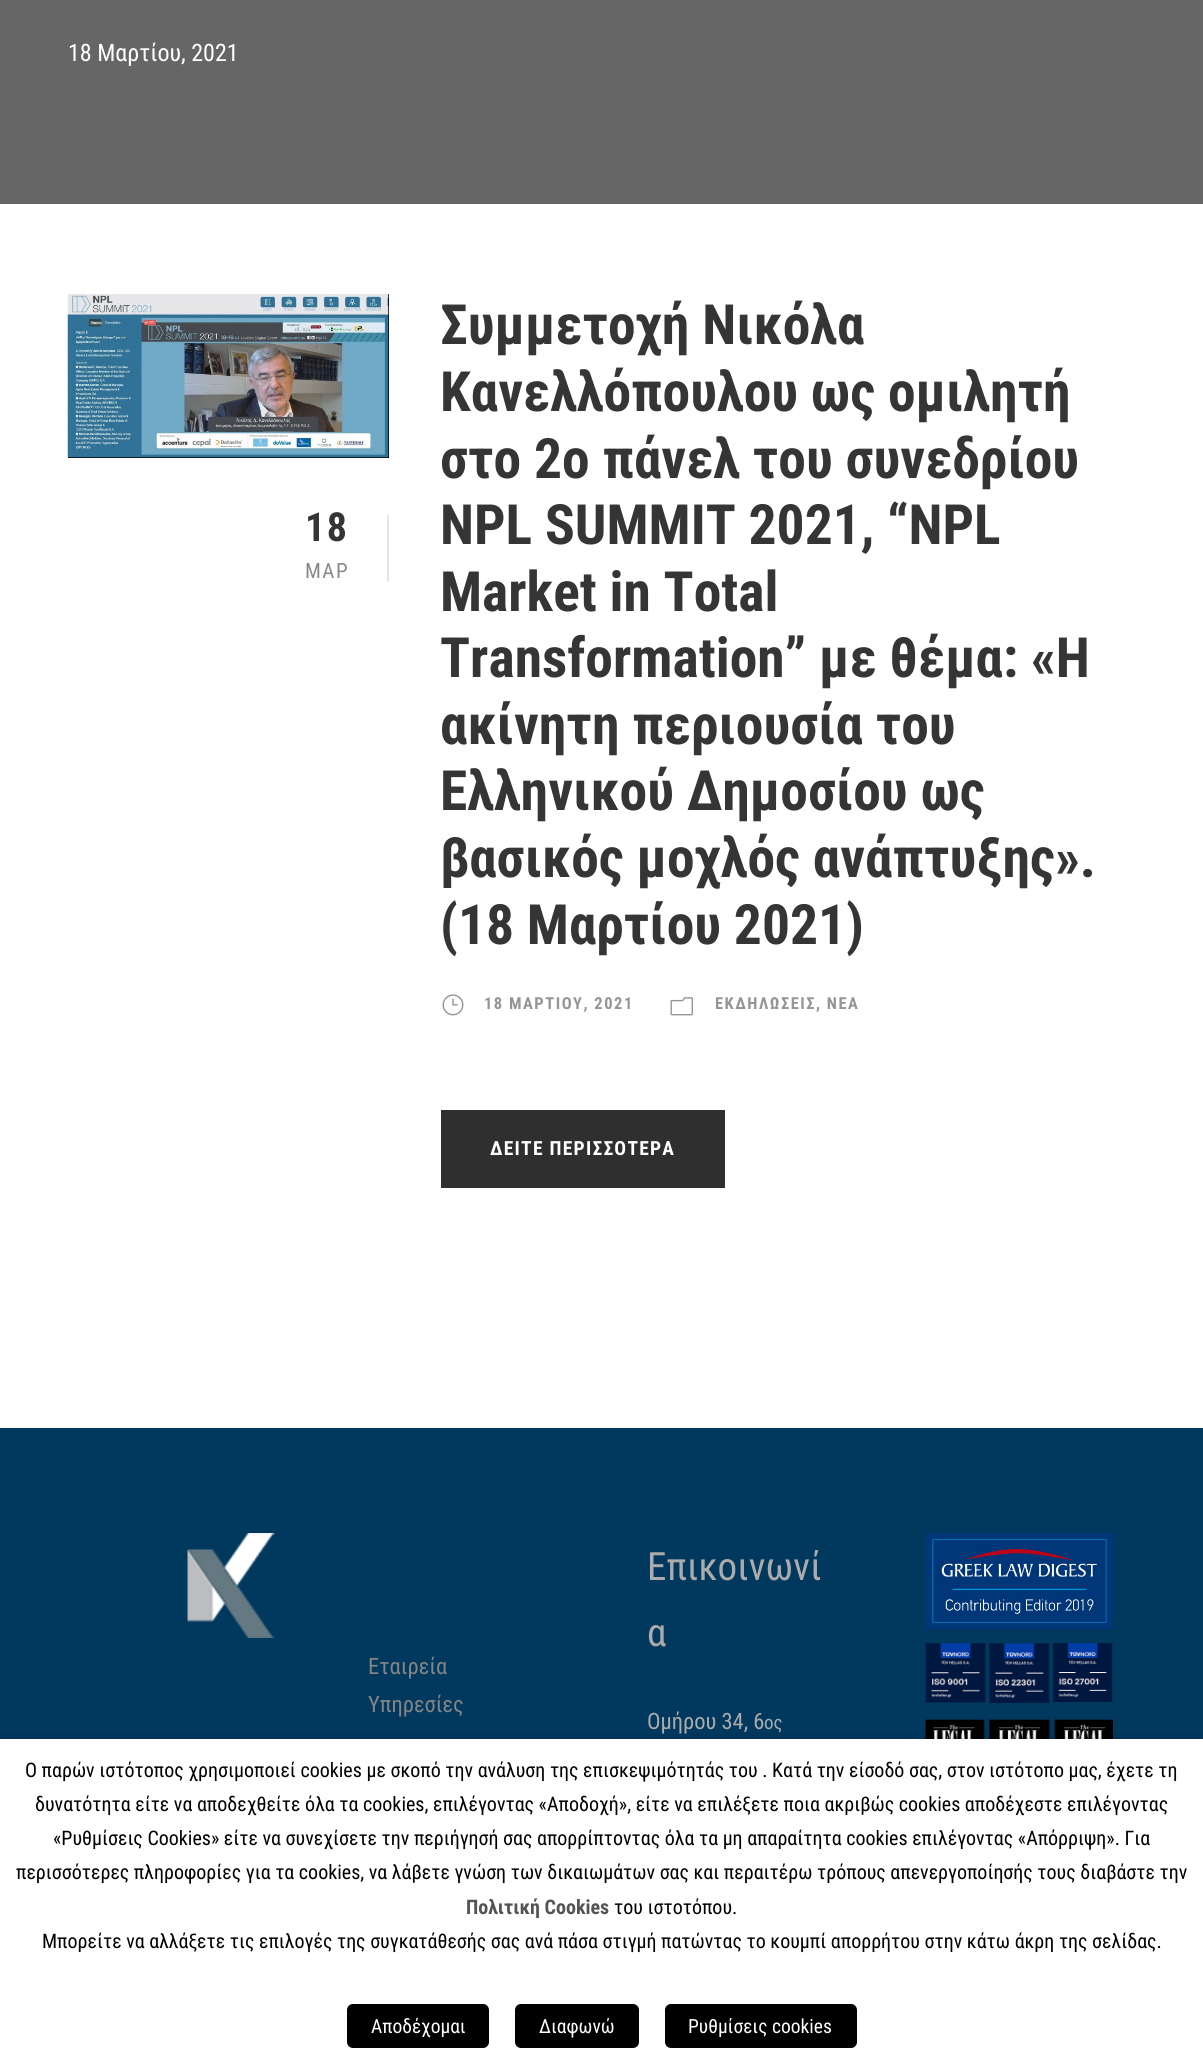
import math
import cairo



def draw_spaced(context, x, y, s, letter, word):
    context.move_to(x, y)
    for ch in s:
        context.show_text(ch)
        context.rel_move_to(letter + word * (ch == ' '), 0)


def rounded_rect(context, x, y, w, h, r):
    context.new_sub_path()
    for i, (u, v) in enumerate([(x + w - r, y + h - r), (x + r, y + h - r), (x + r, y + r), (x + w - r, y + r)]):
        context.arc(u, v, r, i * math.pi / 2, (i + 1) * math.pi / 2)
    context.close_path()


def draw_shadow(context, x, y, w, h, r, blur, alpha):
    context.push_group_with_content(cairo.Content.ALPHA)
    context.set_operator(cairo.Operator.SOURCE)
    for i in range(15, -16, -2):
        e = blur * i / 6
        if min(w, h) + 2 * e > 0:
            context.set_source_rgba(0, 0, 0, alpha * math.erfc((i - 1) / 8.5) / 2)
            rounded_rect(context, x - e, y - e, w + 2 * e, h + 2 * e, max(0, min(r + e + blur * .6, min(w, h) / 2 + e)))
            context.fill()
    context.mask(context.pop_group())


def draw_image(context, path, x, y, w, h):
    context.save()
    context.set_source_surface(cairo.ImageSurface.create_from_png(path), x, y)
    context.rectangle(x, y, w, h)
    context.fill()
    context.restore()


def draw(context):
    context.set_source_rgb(1, 1, 1)
    context.paint()
    context.set_source_rgb(102 / 255, 102 / 255, 102 / 255)
    context.rectangle(0, 0, 1203, 204)
    context.fill()
    context.set_source_rgb(0, 0, 0)
    context.rectangle(68, 294, 321, 164)
    context.fill()
    draw_image(context, "images/1.png", 67, 294, 322, 164)
    context.set_source_rgb(230 / 255, 230 / 255, 230 / 255)
    context.rectangle(387, 515, 2, 67)
    context.fill()
    draw_image(context, "images/2.png", 442, 994, 22, 22)
    draw_image(context, "images/3.png", 670, 997, 23, 19)
    context.set_source_rgb(47 / 255, 47 / 255, 47 / 255)
    context.rectangle(441, 1110, 284, 78)
    context.fill()
    context.set_source_rgb(1 / 255, 56 / 255, 94 / 255)
    context.rectangle(0, 1428, 1203, 311)
    context.fill()
    draw_image(context, "images/4.png", 187, 1533, 88, 105)
    draw_image(context, "images/5.png", 925, 1533, 188, 96)
    draw_image(context, "images/6.png", 925, 1643, 188, 60)
    draw_image(context, "images/7.png", 925, 1719, 188, 20)
    context.set_source_rgb(0, 0, 0)
    draw_shadow(context, 0, 1746, 1203, 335, 0, 7.5, 0.5)
    context.set_source_rgb(1, 1, 1)
    context.rectangle(0, 1739, 1203, 333)
    context.fill()
    context.set_source_rgb(0, 0, 0)
    rounded_rect(context, 347, 2004, 142, 44, 6)
    context.fill()
    rounded_rect(context, 515, 2004, 124, 44, 6)
    context.fill()
    rounded_rect(context, 665, 2004, 192, 44, 6)
    context.fill()
    context.select_font_face("Roboto Condensed")
    context.set_font_size(24)
    context.set_source_rgb(1, 1, 1)
    context.move_to(68, 61)
    context.show_text("18 Μαρτίου, 2021")
    context.select_font_face("Roboto Condensed", cairo.FontSlant.NORMAL, cairo.FontWeight.BOLD)
    context.set_font_size(40)
    context.set_source_rgb(53 / 255, 53 / 255, 53 / 255)
    draw_spaced(context, 305, 541, "18", 1.5, 0)
    context.select_font_face("Roboto Condensed")
    context.set_font_size(21)
    context.set_source_rgb(138 / 255, 138 / 255, 138 / 255)
    draw_spaced(context, 305, 578, "ΜΑΡ", 1.5, 0)
    context.select_font_face("Roboto Condensed", cairo.FontSlant.NORMAL, cairo.FontWeight.BOLD)
    context.set_font_size(55.5)
    context.set_source_rgb(53 / 255, 53 / 255, 53 / 255)
    context.move_to(440, 344)
    context.show_text("Συμμετοχή Νικόλα")
    context.move_to(440, 411)
    context.show_text("Κανελλόπουλου ως ομιλητή")
    context.move_to(440, 478)
    context.show_text("στο 2ο πάνελ του συνεδρίου")
    context.move_to(440, 544)
    context.show_text("NPL SUMMIT 2021, “NPL")
    context.move_to(440, 611)
    context.show_text("Market in Total")
    context.move_to(440, 677)
    context.show_text("Transformation” με θέμα: «Η")
    context.move_to(440, 744)
    context.show_text("ακίνητη περιουσία του")
    context.move_to(440, 810)
    context.show_text("Ελληνικού Δημοσίου ως")
    context.move_to(440, 877)
    context.show_text("βασικός μοχλός ανάπτυξης».")
    context.move_to(440, 944)
    context.show_text("(18 Μαρτίου 2021)")
    context.set_font_size(16.5)
    context.set_source_rgb(149 / 255, 149 / 255, 149 / 255)
    draw_spaced(context, 484, 1009, "18 ΜΑΡΤΙΟΥ, 2021", 1.5, 0)
    draw_spaced(context, 715, 1009, "ΕΚΔΗΛΩΣΕΙΣ, ΝΕΑ", 1.5, 0)
    context.set_font_size(19.5)
    context.set_source_rgb(1, 1, 1)
    draw_spaced(context, 490, 1155, "ΔΕΙΤΕ ΠΕΡΙΣΣΟΤΕΡΑ", 1.25, 0)
    context.select_font_face("Roboto Condensed")
    context.set_font_size(22.5)
    context.set_source_rgb(132 / 255, 132 / 255, 132 / 255)
    context.move_to(368, 1674)
    context.show_text("Εταιρεία")
    context.move_to(368, 1712)
    context.show_text("Υπηρεσίες")
    context.set_font_size(39)
    context.set_source_rgb(171 / 255, 171 / 255, 171 / 255)
    context.move_to(647, 1580)
    context.show_text("Επικοινωνί")
    context.move_to(647, 1646)
    context.show_text("α")
    context.set_font_size(22.5)
    context.move_to(647, 1729)
    context.show_text("Ομήρου 34, 6")
    context.set_font_size(19)
    context.move_to(764, 1729)
    context.show_text("ος")
    context.set_font_size(20)
    context.set_source_rgb(0, 0, 0)
    context.move_to(25, 1777)
    context.show_text("Ο παρών ιστότοπος χρησιμοποιεί cookies με σκοπό την ανάλυση της επισκεψιμότητάς του . Κατά την είσοδό σας, στον")
    context.move_to(989, 1777)
    context.show_text("ιστότοπο μας, έχετε τη")
    context.move_to(35, 1811)
    context.show_text("δυνατότητα είτε να αποδεχθείτε όλα τα cookies, επιλέγοντας «Αποδοχή», είτε να επιλέξετε ποια ακριβώς cookies αποδέχεστε επιλέγοντας")
    context.move_to(53, 1845)
    context.show_text("«Ρυθμίσεις Cookies» είτε να συνεχίσετε την περιήγησή σας απορρίπτοντας όλα τα μη απαραίτητα cookies επιλέγοντας «Απόρριψη». Για")
    context.move_to(16, 1879)
    context.show_text("περισσότερες πληροφορίες για τα cookies, να λάβετε γνώση των δικαιωμάτων σας και περαιτέρω τρόπους απενεργοποίησής τους διαβάστε την")
    context.select_font_face("Roboto Condensed", cairo.FontSlant.NORMAL, cairo.FontWeight.BOLD)
    context.set_source_rgb(84 / 255, 84 / 255, 84 / 255)
    context.move_to(466, 1914)
    context.show_text("Πολιτική Cookies")
    context.select_font_face("Roboto Condensed")
    context.set_source_rgb(0, 0, 0)
    context.move_to(614, 1914)
    context.show_text("του ιστοτόπου.")
    context.move_to(42, 1948)
    context.show_text("Μπορείτε να αλλάξετε τις επιλογές της συγκατάθεσής σας ανά πάσα στιγμή πατώντας το κουμπί απορρήτου στην κάτω άκρη της σελίδας.")
    context.set_font_size(19.5)
    context.set_source_rgb(1, 1, 1)
    context.move_to(371, 2033)
    context.show_text("Αποδέχομαι")
    context.move_to(539, 2033)
    context.show_text("Διαφωνώ")
    context.move_to(688, 2033)
    context.show_text("Ρυθμίσεις cookies")


surface = cairo.ImageSurface(cairo.Format.RGB24, 1203, 2072)
context = cairo.Context(surface)
options = cairo.FontOptions()
options.set_hint_metrics(cairo.HintMetrics.OFF)
options.set_hint_style(cairo.HintStyle.NONE)
context.set_font_options(options)
context.set_miter_limit(4)
draw(context)
surface.write_to_png("out.png")
